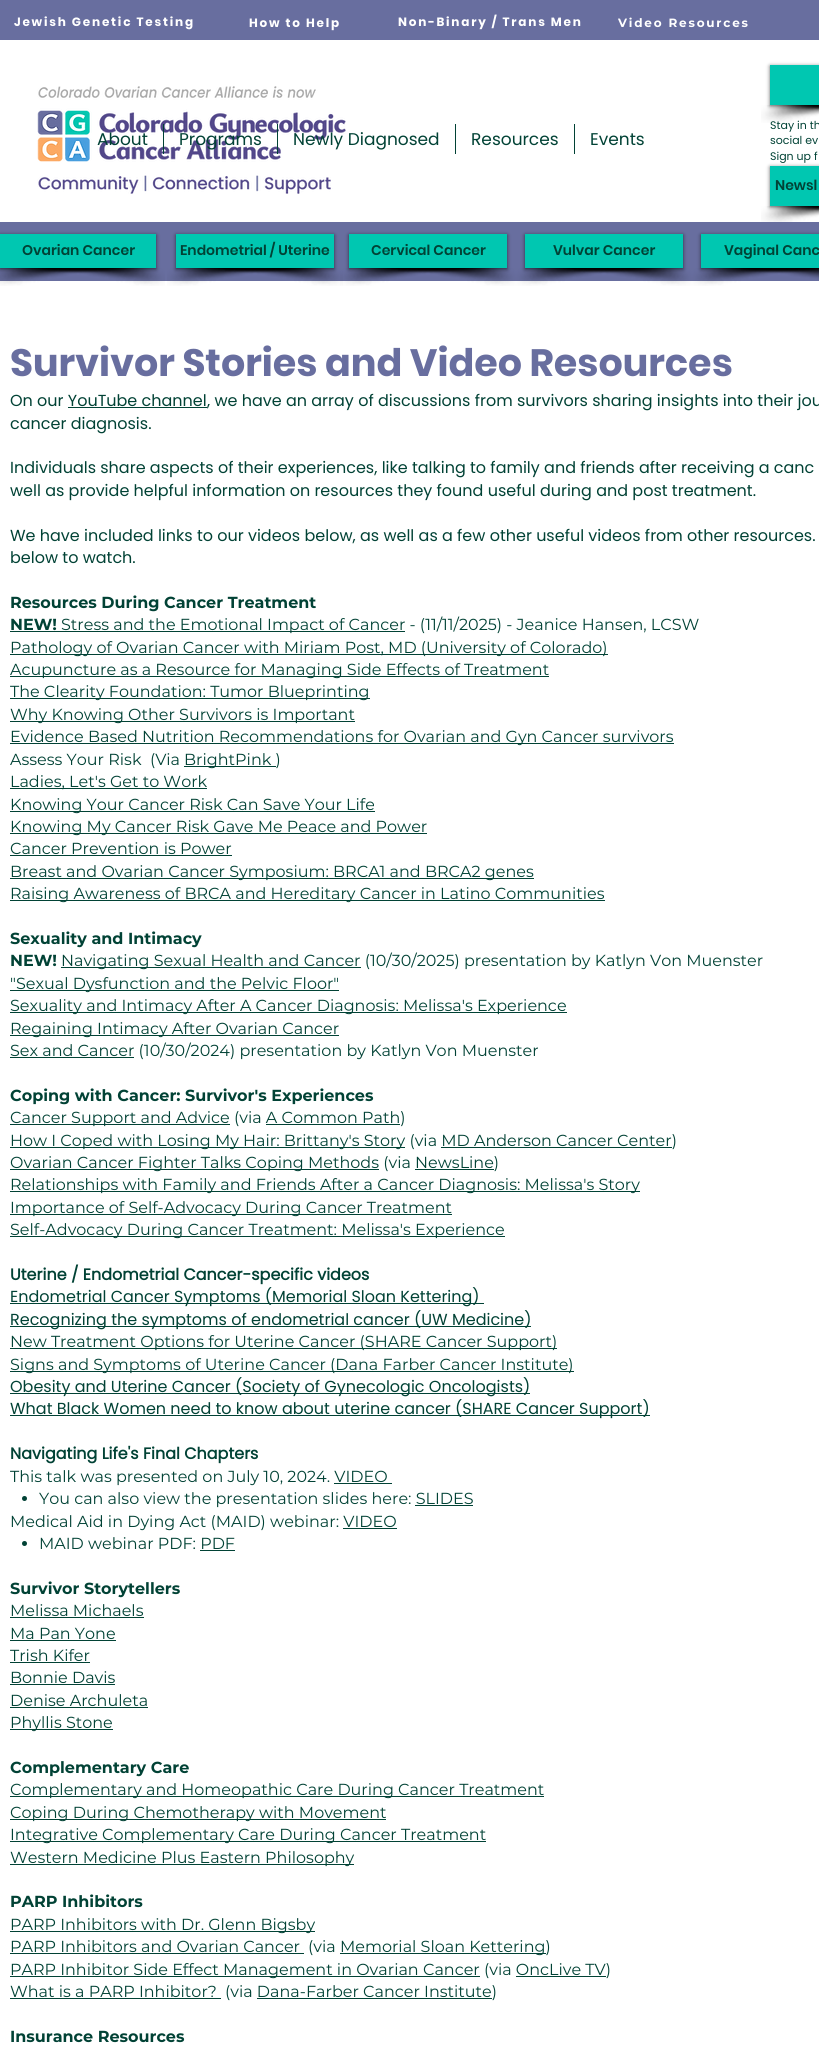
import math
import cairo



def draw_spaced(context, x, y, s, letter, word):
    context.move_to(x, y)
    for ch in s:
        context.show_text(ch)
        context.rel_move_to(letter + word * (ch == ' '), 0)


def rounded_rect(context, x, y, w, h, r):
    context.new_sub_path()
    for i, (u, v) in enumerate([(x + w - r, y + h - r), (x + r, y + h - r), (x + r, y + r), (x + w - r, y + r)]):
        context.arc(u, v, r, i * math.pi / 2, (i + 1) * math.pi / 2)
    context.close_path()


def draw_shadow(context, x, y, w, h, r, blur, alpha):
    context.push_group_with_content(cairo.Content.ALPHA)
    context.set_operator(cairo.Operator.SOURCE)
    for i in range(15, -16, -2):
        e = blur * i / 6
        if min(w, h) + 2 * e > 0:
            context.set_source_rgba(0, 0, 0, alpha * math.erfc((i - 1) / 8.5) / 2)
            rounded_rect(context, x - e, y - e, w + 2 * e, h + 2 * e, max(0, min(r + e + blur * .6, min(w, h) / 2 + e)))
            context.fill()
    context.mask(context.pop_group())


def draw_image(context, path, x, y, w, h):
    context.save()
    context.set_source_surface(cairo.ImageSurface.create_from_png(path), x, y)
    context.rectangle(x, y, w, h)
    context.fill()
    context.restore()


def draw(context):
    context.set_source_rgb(1, 1, 1)
    context.paint()
    context.set_source_rgb(104 / 255, 110 / 255, 159 / 255)
    context.rectangle(0, 0, 819, 40)
    context.fill()
    draw_image(context, "images/1.png", 37, 86, 309, 108)
    draw_image(context, "images/2.png", 761, 105, 58, 18)
    draw_image(context, "images/3.png", 767, 105, 52, 4)
    context.set_source_rgb(0, 0, 0)
    draw_shadow(context, 770, 66, 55, 40, 0, 2, 0.6)
    context.set_source_rgb(0, 199 / 255, 177 / 255)
    context.rectangle(770, 65, 49, 40)
    context.fill()
    context.set_source_rgb(1 / 255, 66 / 255, 53 / 255)
    context.rectangle(163, 124, 1, 30)
    context.fill()
    context.rectangle(277, 124, 1, 30)
    context.fill()
    context.rectangle(455, 124, 1, 30)
    context.fill()
    context.rectangle(574, 124, 1, 30)
    context.fill()
    draw_image(context, "images/4.png", 761, 206, 58, 16)
    draw_image(context, "images/3.png", 767, 206, 52, 4)
    context.set_source_rgb(0, 0, 0)
    draw_shadow(context, 770, 167, 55, 40, 0, 2, 0.6)
    context.set_source_rgb(0, 199 / 255, 177 / 255)
    context.rectangle(770, 166, 49, 40)
    context.fill()
    context.set_source_rgb(104 / 255, 110 / 255, 159 / 255)
    context.rectangle(0, 222, 819, 59)
    context.fill()
    draw_image(context, "images/5.png", 0, 268, 140, 18)
    draw_image(context, "images/6.png", 40, 268, 125, 18)
    context.set_source_rgb(0, 0, 0)
    draw_shadow(context, 0, 235, 156, 34, 0, 2, 0.6)
    context.set_source_rgb(0, 199 / 255, 177 / 255)
    context.rectangle(0, 234, 156, 34)
    context.fill()
    draw_image(context, "images/7.png", 167, 268, 149, 18)
    draw_image(context, "images/8.png", 225, 268, 118, 18)
    context.set_source_rgb(0, 0, 0)
    draw_shadow(context, 176, 235, 158, 34, 0, 2, 0.6)
    context.set_source_rgb(0, 199 / 255, 177 / 255)
    context.rectangle(176, 234, 158, 34)
    context.fill()
    draw_image(context, "images/9.png", 340, 268, 149, 18)
    draw_image(context, "images/8.png", 398, 268, 118, 18)
    context.set_source_rgb(0, 0, 0)
    draw_shadow(context, 349, 235, 158, 34, 0, 2, 0.6)
    context.set_source_rgb(0, 199 / 255, 177 / 255)
    context.rectangle(349, 234, 158, 34)
    context.fill()
    draw_image(context, "images/7.png", 516, 268, 149, 18)
    draw_image(context, "images/8.png", 574, 268, 118, 18)
    context.set_source_rgb(0, 0, 0)
    draw_shadow(context, 525, 235, 158, 34, 0, 2, 0.6)
    context.set_source_rgb(0, 199 / 255, 177 / 255)
    context.rectangle(525, 234, 158, 34)
    context.fill()
    draw_image(context, "images/10.png", 692, 268, 127, 18)
    draw_image(context, "images/11.png", 741, 268, 78, 12)
    context.set_source_rgb(0, 0, 0)
    draw_shadow(context, 701, 235, 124, 34, 0, 2, 0.6)
    context.set_source_rgb(0, 199 / 255, 177 / 255)
    context.rectangle(701, 234, 118, 34)
    context.fill()
    context.set_source_rgb(1 / 255, 66 / 255, 53 / 255)
    context.rectangle(68, 407, 139, 1)
    context.fill()
    context.rectangle(10, 631, 395, 1)
    context.fill()
    context.rectangle(10, 654, 598, 1)
    context.fill()
    context.rectangle(10, 676, 539, 1)
    context.fill()
    context.rectangle(10, 698, 360, 1)
    context.fill()
    context.rectangle(10, 721, 345, 1)
    context.fill()
    context.rectangle(10, 743, 664, 1)
    context.fill()
    context.rectangle(184, 766, 92, 1)
    context.fill()
    context.rectangle(10, 788, 197, 1)
    context.fill()
    context.rectangle(10, 811, 365, 1)
    context.fill()
    context.rectangle(10, 833, 417, 1)
    context.fill()
    context.rectangle(10, 855, 222, 1)
    context.fill()
    context.rectangle(10, 878, 524, 1)
    context.fill()
    context.rectangle(10, 900, 595, 1)
    context.fill()
    context.rectangle(61, 967, 300, 1)
    context.fill()
    context.rectangle(10, 990, 329, 1)
    context.fill()
    context.rectangle(10, 1012, 557, 1)
    context.fill()
    context.rectangle(10, 1035, 329, 1)
    context.fill()
    context.rectangle(10, 1057, 124, 1)
    context.fill()
    context.rectangle(10, 1124, 220, 1)
    context.fill()
    context.rectangle(266, 1124, 134, 1)
    context.fill()
    context.rectangle(10, 1147, 395, 1)
    context.fill()
    context.rectangle(441, 1147, 231, 1)
    context.fill()
    context.rectangle(10, 1169, 369, 1)
    context.fill()
    context.rectangle(415, 1169, 79, 1)
    context.fill()
    context.rectangle(10, 1191, 630, 1)
    context.fill()
    context.rectangle(10, 1214, 442, 1)
    context.fill()
    context.rectangle(10, 1236, 495, 1)
    context.fill()
    context.rectangle(10, 1303, 474, 1)
    context.fill()
    context.rectangle(10, 1326, 521, 1)
    context.fill()
    context.rectangle(10, 1348, 547, 1)
    context.fill()
    context.rectangle(10, 1371, 564, 1)
    context.fill()
    context.rectangle(10, 1393, 520, 1)
    context.fill()
    context.rectangle(10, 1415, 640, 1)
    context.fill()
    context.rectangle(334, 1483, 58, 1)
    context.fill()
    context.arc(24.5, 1498.5, 2.5, 0, 2 * math.pi)
    context.fill()
    context.rectangle(415, 1505, 58, 1)
    context.fill()
    context.rectangle(343, 1528, 54, 1)
    context.fill()
    context.arc(24.5, 1543.5, 2.5, 0, 2 * math.pi)
    context.fill()
    context.rectangle(200, 1550, 35, 1)
    context.fill()
    context.rectangle(10, 1617, 134, 1)
    context.fill()
    context.rectangle(10, 1640, 106, 1)
    context.fill()
    context.rectangle(10, 1662, 80, 1)
    context.fill()
    context.rectangle(10, 1684, 105, 1)
    context.fill()
    context.rectangle(10, 1707, 138, 1)
    context.fill()
    context.rectangle(10, 1729, 103, 1)
    context.fill()
    context.rectangle(10, 1796, 534, 1)
    context.fill()
    context.rectangle(10, 1819, 376, 1)
    context.fill()
    context.rectangle(10, 1841, 476, 1)
    context.fill()
    context.rectangle(10, 1864, 344, 1)
    context.fill()
    context.rectangle(10, 1931, 305, 1)
    context.fill()
    context.rectangle(10, 1953, 294, 1)
    context.fill()
    context.rectangle(340, 1953, 206, 1)
    context.fill()
    context.rectangle(10, 1976, 470, 1)
    context.fill()
    context.rectangle(516, 1976, 90, 1)
    context.fill()
    context.rectangle(10, 1998, 211, 1)
    context.fill()
    context.rectangle(257, 1998, 235, 1)
    context.fill()
    context.select_font_face("Poppins", cairo.FontSlant.NORMAL, cairo.FontWeight.BOLD)
    context.set_font_size(12)
    context.set_source_rgb(1, 1, 1)
    draw_spaced(context, 14, 26, "Jewish Genetic Testing", 1.8, 0)
    draw_spaced(context, 249, 27, "How to Help", 1.8, 0)
    draw_spaced(context, 398, 26, "Non-Binary / Trans Men", 1.8, 0)
    context.select_font_face("Montserrat", cairo.FontSlant.NORMAL, cairo.FontWeight.BOLD)
    draw_spaced(context, 618, 27, "Video Resources", 1.8, 0)
    context.select_font_face("Poppins")
    context.set_font_size(17)
    context.set_source_rgb(1 / 255, 66 / 255, 53 / 255)
    context.move_to(97, 145)
    context.show_text("About")
    context.move_to(179, 145)
    context.show_text("Programs")
    context.move_to(293, 145)
    context.show_text("Newly Diagnosed")
    context.move_to(471, 145)
    context.show_text("Resources")
    context.move_to(590, 145)
    context.show_text("Events")
    context.set_font_size(11)
    context.move_to(770, 129)
    context.show_text("Stay in th")
    context.move_to(770, 144)
    context.show_text("social ev")
    context.move_to(770, 160)
    context.show_text("Sign up f")
    context.select_font_face("Poppins SemiBold")
    context.set_font_size(14)
    context.move_to(775, 190)
    context.show_text("Newsl")
    context.move_to(22, 255)
    context.show_text("Ovarian Cancer")
    context.move_to(180, 255)
    context.show_text("Endometrial / Uterine")
    context.move_to(371, 255)
    context.show_text("Cervical Cancer")
    context.move_to(553, 255)
    context.show_text("Vulvar Cancer")
    context.move_to(724, 255)
    context.show_text("Vaginal Canc")
    context.select_font_face("Poppins", cairo.FontSlant.NORMAL, cairo.FontWeight.BOLD)
    context.set_font_size(38)
    context.set_source_rgb(104 / 255, 110 / 255, 159 / 255)
    context.move_to(10, 376)
    context.show_text("Survivor Stories and Video Resources")
    context.select_font_face("Poppins")
    context.set_font_size(16)
    context.set_source_rgb(1 / 255, 66 / 255, 53 / 255)
    context.move_to(10, 406)
    context.show_text("On our YouTube channel")
    context.move_to(207, 406)
    context.show_text(", we have an array of discussions from survivors sharing insights into their jou")
    context.move_to(10, 429)
    context.show_text("cancer diagnosis.")
    context.move_to(10, 473)
    context.show_text("Individuals share aspects of their experiences, like talking to family and friends after receiving a canc")
    context.move_to(10, 496)
    context.show_text("well as provide helpful information on resources they found useful during and post treatment.")
    context.move_to(10, 541)
    context.show_text("We have included links to our videos below, as well as a few other useful videos from other resources.")
    context.move_to(10, 563)
    context.show_text("below to watch.")
    context.select_font_face("Montserrat", cairo.FontSlant.NORMAL, cairo.FontWeight.BOLD)
    context.move_to(10, 608)
    context.show_text("Resources During Cancer Treatment")
    context.move_to(10, 630)
    context.show_text("NEW!")
    context.select_font_face("Montserrat")
    context.move_to(61, 630)
    context.show_text("Stress and the Emotional Impact of Cancer - (11/11/2025) - Jeanice Hansen, LCSW")
    context.move_to(10, 653)
    context.show_text("Pathology of Ovarian Cancer with Miriam Post, MD (University of Colorado)")
    context.move_to(10, 675)
    context.show_text("Acupuncture as a Resource for Managing Side Effects of Treatment")
    context.move_to(10, 697)
    context.show_text("The Clearity Foundation: Tumor Blueprinting")
    context.move_to(10, 720)
    context.show_text("Why Knowing Other Survivors is Important")
    context.move_to(10, 742)
    context.show_text("Evidence Based Nutrition Recommendations for Ovarian and Gyn Cancer survivors")
    context.move_to(10, 765)
    context.show_text("Assess Your Risk  (Via")
    context.move_to(184, 765)
    context.show_text("BrightPink )")
    context.move_to(10, 787)
    context.show_text("Ladies, Let's Get to Work")
    context.move_to(10, 810)
    context.show_text("Knowing Your Cancer Risk Can Save Your Life")
    context.move_to(10, 832)
    context.show_text("Knowing My Cancer Risk Gave Me Peace and Power")
    context.move_to(10, 854)
    context.show_text("Cancer Prevention is Power")
    context.move_to(10, 877)
    context.show_text("Breast and Ovarian Cancer Symposium: BRCA1 and BRCA2 genes")
    context.move_to(10, 899)
    context.show_text("Raising Awareness of BRCA and Hereditary Cancer in Latino Communities")
    context.select_font_face("Montserrat", cairo.FontSlant.NORMAL, cairo.FontWeight.BOLD)
    context.move_to(10, 944)
    context.show_text("Sexuality and Intimacy")
    context.move_to(10, 966)
    context.show_text("NEW!")
    context.select_font_face("Montserrat")
    context.move_to(61, 966)
    context.show_text("Navigating Sexual Health and Cancer (10/30/2025) presentation by Katlyn Von Muenster")
    context.move_to(10, 989)
    context.show_text("\"Sexual Dysfunction and the Pelvic Floor\"")
    context.move_to(10, 1011)
    context.show_text("Sexuality and Intimacy After A Cancer Diagnosis: Melissa's Experience")
    context.move_to(10, 1034)
    context.show_text("Regaining Intimacy After Ovarian Cancer")
    context.move_to(10, 1056)
    context.show_text("Sex and Cancer (10/30/2024) presentation by Katlyn Von Muenster")
    context.select_font_face("Montserrat", cairo.FontSlant.NORMAL, cairo.FontWeight.BOLD)
    context.move_to(10, 1101)
    context.show_text("Coping with Cancer: Survivor's Experiences")
    context.select_font_face("Montserrat")
    context.move_to(10, 1123)
    context.show_text("Cancer Support and Advice (via A Common Path)")
    context.move_to(10, 1146)
    context.show_text("How I Coped with Losing My Hair: Brittany's Story (via MD Anderson Cancer Center)")
    context.move_to(10, 1168)
    context.show_text("Ovarian Cancer Fighter Talks Coping Methods (via NewsLine)")
    context.move_to(10, 1190)
    context.show_text("Relationships with Family and Friends After a Cancer Diagnosis: Melissa's Story")
    context.move_to(10, 1213)
    context.show_text("Importance of Self-Advocacy During Cancer Treatment")
    context.move_to(10, 1235)
    context.show_text("Self-Advocacy During Cancer Treatment: Melissa's Experience")
    context.select_font_face("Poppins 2", cairo.FontSlant.NORMAL, cairo.FontWeight.BOLD)
    context.move_to(10, 1280)
    context.show_text("Uterine / Endometrial Cancer-specific videos")
    context.select_font_face("Poppins")
    context.move_to(10, 1302)
    context.show_text("Endometrial Cancer Symptoms (Memorial Sloan Kettering)")
    context.move_to(10, 1325)
    context.show_text("Recognizing the symptoms of endometrial cancer (UW Medicine)")
    context.select_font_face("Montserrat")
    context.move_to(10, 1347)
    context.show_text("New Treatment Options for Uterine Cancer (SHARE Cancer Support)")
    context.move_to(10, 1370)
    context.show_text("Signs and Symptoms of Uterine Cancer (Dana Farber Cancer Institute)")
    context.select_font_face("Poppins")
    context.move_to(10, 1392)
    context.show_text("Obesity and Uterine Cancer (Society of Gynecologic Oncologists)")
    context.move_to(10, 1414)
    context.show_text("What Black Women need to know about uterine cancer (SHARE Cancer Support)")
    context.select_font_face("Poppins 2", cairo.FontSlant.NORMAL, cairo.FontWeight.BOLD)
    context.move_to(10, 1459)
    context.show_text("Navigating Life's Final Chapters")
    context.select_font_face("Montserrat")
    context.move_to(10, 1482)
    context.show_text("This talk was presented on July 10, 2024. VIDEO")
    context.move_to(39, 1504)
    context.show_text("You can also view the presentation slides here: SLIDES")
    context.move_to(10, 1527)
    context.show_text("Medical Aid in Dying Act (MAID) webinar: VIDEO")
    context.move_to(39, 1549)
    context.show_text("MAID webinar PDF: PDF")
    context.select_font_face("Montserrat", cairo.FontSlant.NORMAL, cairo.FontWeight.BOLD)
    context.move_to(10, 1594)
    context.show_text("Survivor Storytellers")
    context.select_font_face("Montserrat")
    context.move_to(10, 1616)
    context.show_text("Melissa Michaels")
    context.move_to(10, 1639)
    context.show_text("Ma Pan Yone")
    context.move_to(10, 1661)
    context.show_text("Trish Kifer")
    context.move_to(10, 1683)
    context.show_text("Bonnie Davis")
    context.move_to(10, 1706)
    context.show_text("Denise Archuleta")
    context.move_to(10, 1728)
    context.show_text("Phyllis Stone")
    context.select_font_face("Montserrat", cairo.FontSlant.NORMAL, cairo.FontWeight.BOLD)
    context.move_to(10, 1773)
    context.show_text("Complementary Care")
    context.select_font_face("Montserrat")
    context.move_to(10, 1795)
    context.show_text("Complementary and Homeopathic Care During Cancer Treatment")
    context.move_to(10, 1818)
    context.show_text("Coping During Chemotherapy with Movement")
    context.move_to(10, 1840)
    context.show_text("Integrative Complementary Care During Cancer Treatment")
    context.move_to(10, 1863)
    context.show_text("Western Medicine Plus Eastern Philosophy")
    context.select_font_face("Montserrat", cairo.FontSlant.NORMAL, cairo.FontWeight.BOLD)
    context.move_to(10, 1907)
    context.show_text("PARP Inhibitors")
    context.select_font_face("Montserrat")
    context.move_to(10, 1930)
    context.show_text("PARP Inhibitors with Dr. Glenn Bigsby")
    context.move_to(10, 1952)
    context.show_text("PARP Inhibitors and Ovarian Cancer")
    context.move_to(308, 1952)
    context.show_text("(via")
    context.move_to(340, 1952)
    context.show_text("Memorial Sloan Kettering)")
    context.move_to(10, 1975)
    context.show_text("PARP Inhibitor Side Effect Management in Ovarian Cancer (via OncLive TV)")
    context.move_to(10, 1997)
    context.show_text("What is a PARP Inhibitor?")
    context.move_to(225, 1997)
    context.show_text("(via Dana-Farber Cancer Institute)")
    context.select_font_face("Montserrat", cairo.FontSlant.NORMAL, cairo.FontWeight.BOLD)
    context.move_to(10, 2042)
    context.show_text("Insurance Resources")


surface = cairo.ImageSurface(cairo.Format.RGB24, 819, 2054)
context = cairo.Context(surface)
options = cairo.FontOptions()
options.set_hint_metrics(cairo.HintMetrics.OFF)
options.set_hint_style(cairo.HintStyle.NONE)
context.set_font_options(options)
context.set_miter_limit(4)
draw(context)
surface.write_to_png("out.png")
